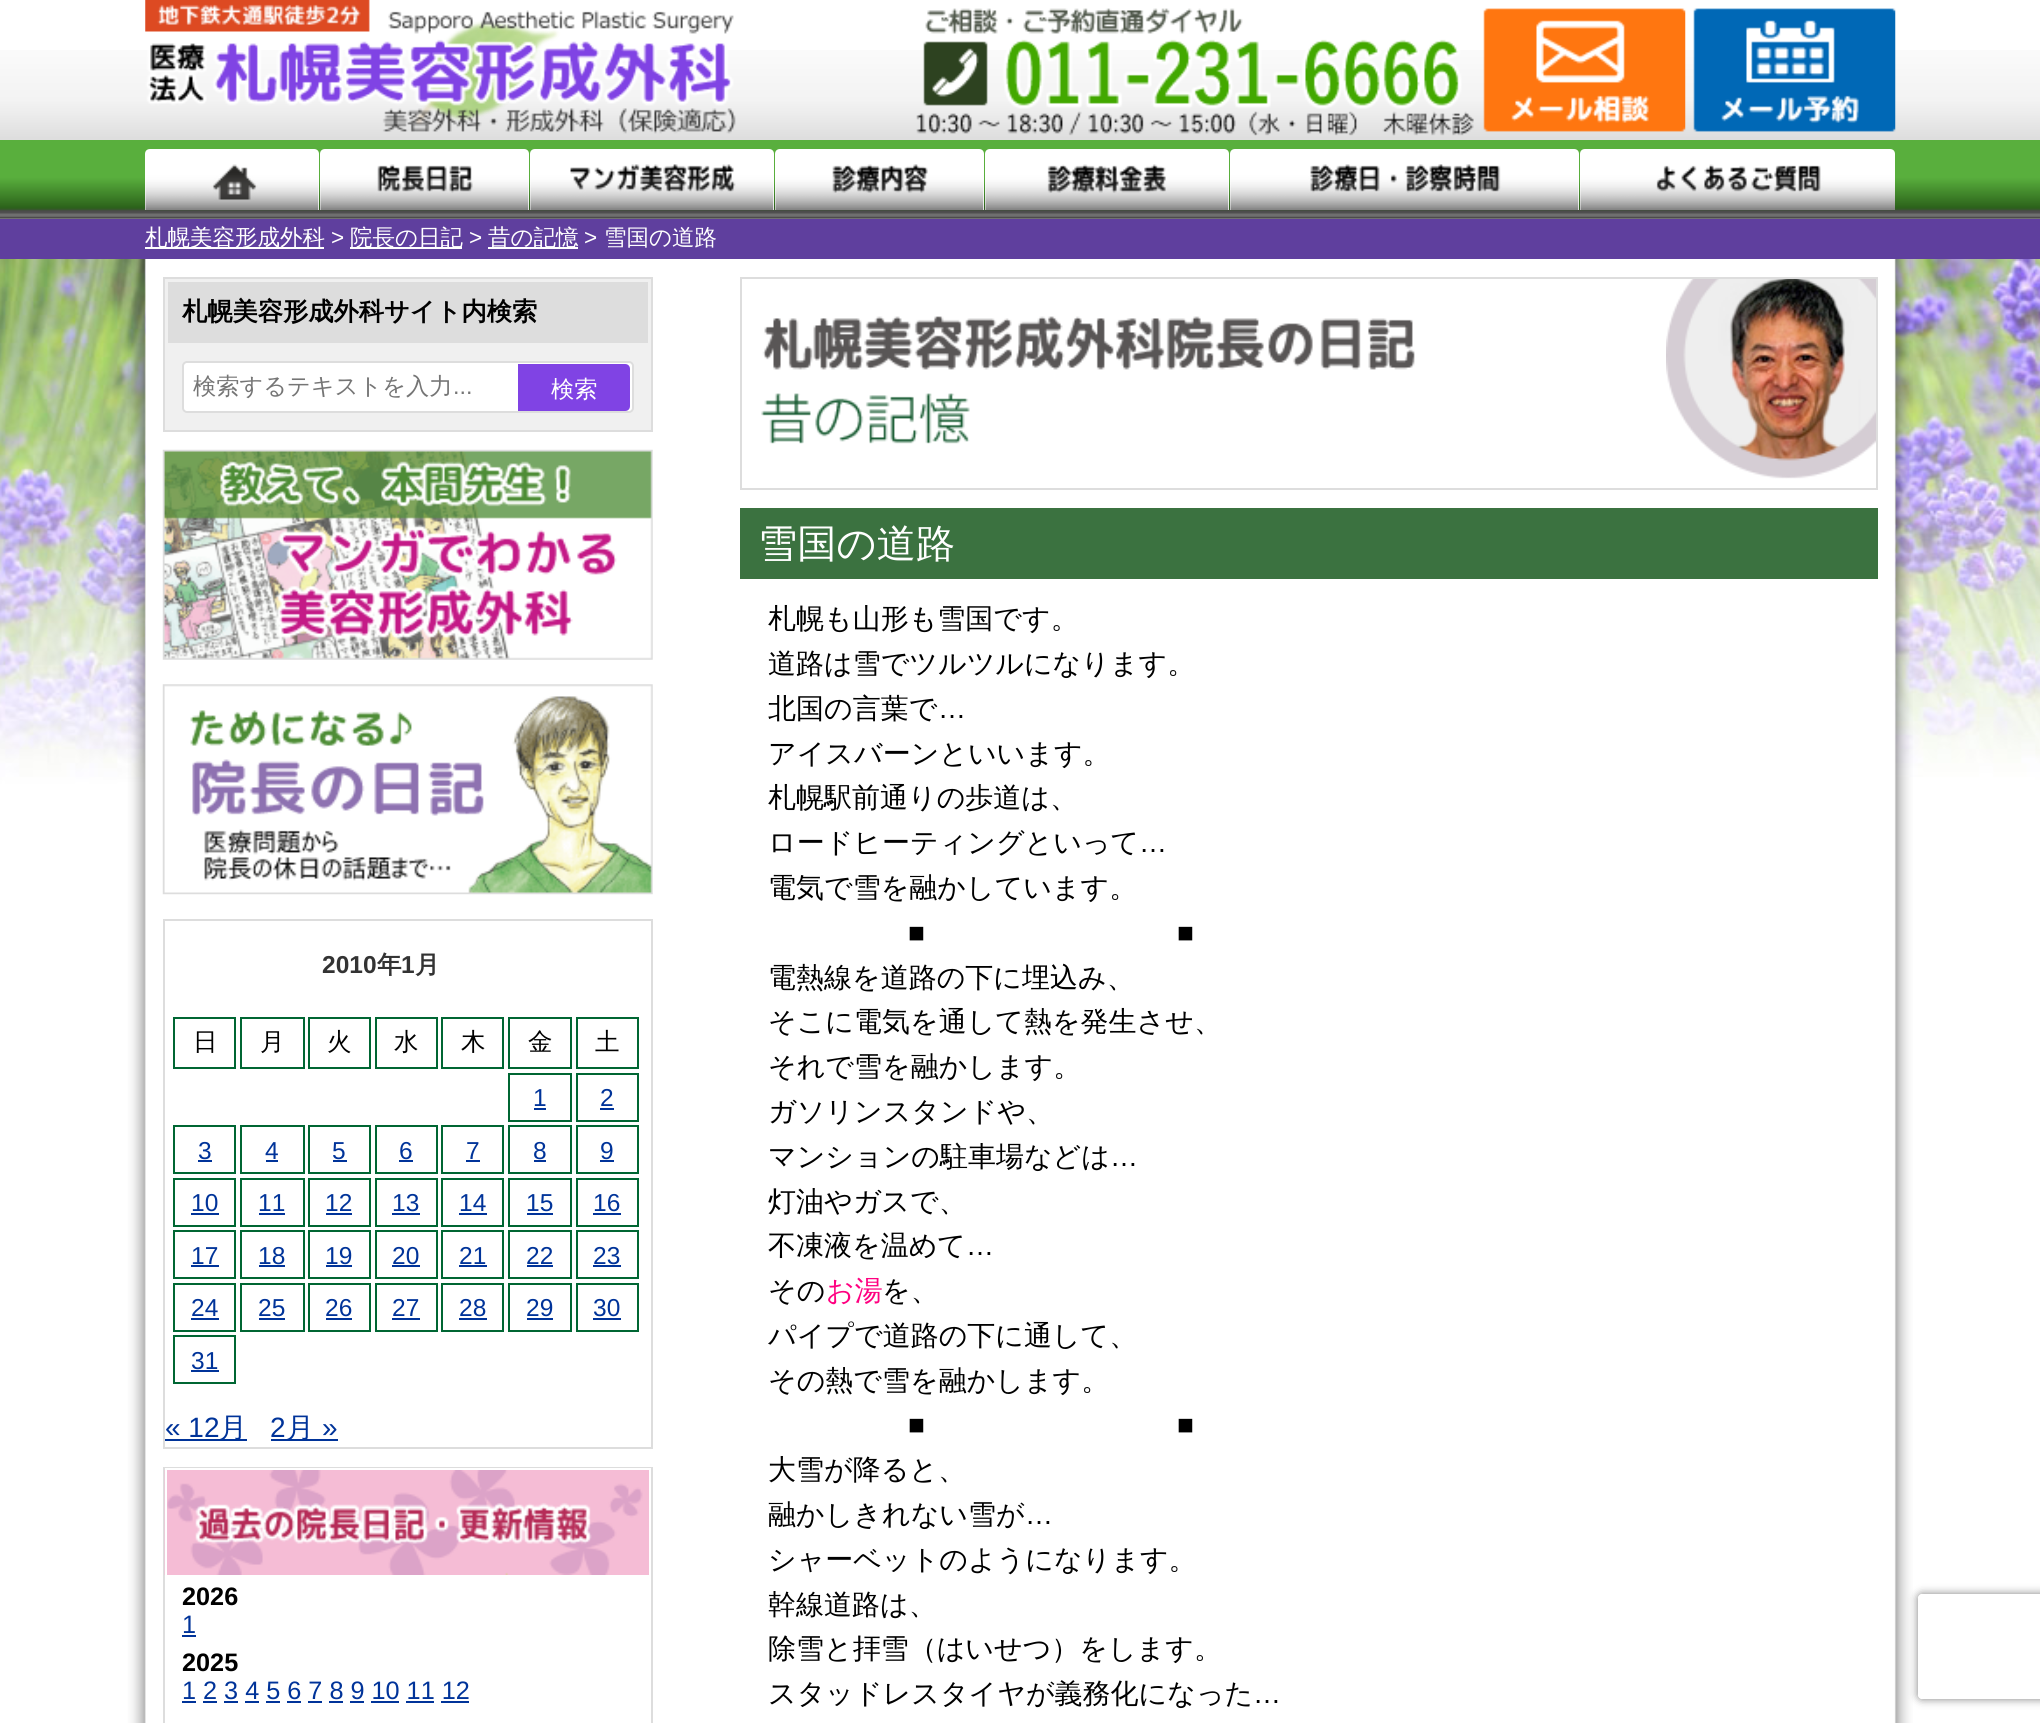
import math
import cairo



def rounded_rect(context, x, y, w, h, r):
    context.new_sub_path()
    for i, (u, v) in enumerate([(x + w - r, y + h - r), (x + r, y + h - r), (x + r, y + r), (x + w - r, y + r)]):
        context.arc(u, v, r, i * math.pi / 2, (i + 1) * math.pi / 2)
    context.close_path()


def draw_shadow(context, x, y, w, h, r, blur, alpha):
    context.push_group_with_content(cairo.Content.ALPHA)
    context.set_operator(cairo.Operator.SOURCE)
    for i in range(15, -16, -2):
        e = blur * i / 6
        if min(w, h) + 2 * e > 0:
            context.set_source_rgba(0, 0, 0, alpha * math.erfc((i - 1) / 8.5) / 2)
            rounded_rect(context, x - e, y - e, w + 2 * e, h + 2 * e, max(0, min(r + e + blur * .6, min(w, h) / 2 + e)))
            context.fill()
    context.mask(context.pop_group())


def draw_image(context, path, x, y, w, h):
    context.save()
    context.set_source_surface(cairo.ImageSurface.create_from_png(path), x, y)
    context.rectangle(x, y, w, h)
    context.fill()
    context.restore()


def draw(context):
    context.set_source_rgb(1, 1, 1)
    context.paint()
    draw_image(context, "images/1.png", 0, 50, 2040, 90)
    draw_image(context, "images/2.png", 145, 0, 591, 134)
    draw_image(context, "images/3.png", 916, 8, 558, 128)
    draw_image(context, "images/4.png", 1483, 8, 203, 124)
    draw_image(context, "images/5.png", 1693, 8, 203, 124)
    draw_image(context, "images/6.png", 0, 140, 2040, 79)
    context.set_source_rgb(1, 1, 1)
    context.new_path()
    context.move_to(150, 149)
    context.line_to(314, 149)
    context.curve_to(317, 149, 319, 151, 319, 154)
    context.line_to(319, 210)
    context.line_to(145, 210)
    context.line_to(145, 154)
    context.curve_to(145, 151, 147, 149, 150, 149)
    context.close_path()
    context.fill()
    draw_image(context, "images/7.png", 145, 164, 174, 46)
    context.new_path()
    context.move_to(325, 149)
    context.line_to(524, 149)
    context.curve_to(527, 149, 529, 151, 529, 154)
    context.line_to(529, 210)
    context.line_to(320, 210)
    context.line_to(320, 154)
    context.curve_to(320, 151, 322, 149, 325, 149)
    context.close_path()
    context.fill()
    draw_image(context, "images/8.png", 320, 164, 209, 46)
    context.new_path()
    context.move_to(535, 149)
    context.line_to(769, 149)
    context.curve_to(772, 149, 774, 151, 774, 154)
    context.line_to(774, 210)
    context.line_to(530, 210)
    context.line_to(530, 154)
    context.curve_to(530, 151, 532, 149, 535, 149)
    context.close_path()
    context.fill()
    draw_image(context, "images/9.png", 530, 164, 244, 46)
    context.new_path()
    context.move_to(780, 149)
    context.line_to(979, 149)
    context.curve_to(982, 149, 984, 151, 984, 154)
    context.line_to(984, 210)
    context.line_to(775, 210)
    context.line_to(775, 154)
    context.curve_to(775, 151, 777, 149, 780, 149)
    context.close_path()
    context.fill()
    draw_image(context, "images/10.png", 775, 164, 209, 46)
    context.new_path()
    context.move_to(990, 149)
    context.line_to(1224, 149)
    context.curve_to(1227, 149, 1229, 151, 1229, 154)
    context.line_to(1229, 210)
    context.line_to(985, 210)
    context.line_to(985, 154)
    context.curve_to(985, 151, 987, 149, 990, 149)
    context.close_path()
    context.fill()
    draw_image(context, "images/11.png", 985, 164, 244, 46)
    context.new_path()
    context.move_to(1235, 149)
    context.line_to(1574, 149)
    context.curve_to(1577, 149, 1579, 151, 1579, 154)
    context.line_to(1579, 210)
    context.line_to(1230, 210)
    context.line_to(1230, 154)
    context.curve_to(1230, 151, 1232, 149, 1235, 149)
    context.close_path()
    context.fill()
    draw_image(context, "images/12.png", 1230, 164, 349, 46)
    context.new_path()
    context.move_to(1585, 149)
    context.line_to(1890, 149)
    context.curve_to(1893, 149, 1895, 151, 1895, 154)
    context.line_to(1895, 210)
    context.line_to(1580, 210)
    context.line_to(1580, 154)
    context.curve_to(1580, 151, 1582, 149, 1585, 149)
    context.close_path()
    context.fill()
    draw_image(context, "images/13.png", 1580, 164, 315, 46)
    context.set_source_rgb(95 / 255, 63 / 255, 158 / 255)
    context.rectangle(0, 219, 2040, 40)
    context.fill()
    context.set_source_rgb(1, 1, 1)
    context.rectangle(145, 247, 179, 2)
    context.fill()
    context.rectangle(350, 247, 112, 2)
    context.fill()
    context.rectangle(488, 247, 90, 2)
    context.fill()
    draw_image(context, "images/14.png", 0, 259, 2040, 1464)
    context.set_source_rgb(240 / 255, 240 / 255, 240 / 255)
    context.rectangle(164, 278, 488, 153)
    context.fill_preserve()
    context.set_source_rgb(221 / 255, 221 / 255, 221 / 255)
    context.stroke()
    context.rectangle(168, 282, 480, 61)
    context.fill()
    context.set_source_rgb(1, 1, 1)
    rounded_rect(context, 183, 362, 450, 50, 4)
    context.fill_preserve()
    context.set_source_rgb(221 / 255, 221 / 255, 221 / 255)
    context.stroke()
    context.set_source_rgb(128 / 255, 67 / 255, 228 / 255)
    context.new_path()
    context.move_to(518, 364)
    context.line_to(625, 364)
    context.curve_to(628, 364, 630, 366, 630, 369)
    context.line_to(630, 406)
    context.curve_to(630, 409, 628, 411, 625, 411)
    context.line_to(518, 411)
    context.close_path()
    context.fill()
    draw_image(context, "images/15.png", 162, 449, 491, 211)
    draw_image(context, "images/16.png", 162, 684, 491, 211)
    context.rectangle(164, 920, 488, 528)
    context.set_source_rgb(221 / 255, 221 / 255, 221 / 255)
    context.stroke()
    context.rectangle(174, 1018, 61, 50)
    context.set_source_rgb(0, 102 / 255, 51 / 255)
    context.stroke()
    context.rectangle(241, 1018, 63, 50)
    context.stroke()
    context.rectangle(309, 1018, 61, 50)
    context.stroke()
    context.rectangle(376, 1018, 61, 50)
    context.stroke()
    context.rectangle(442, 1018, 61, 50)
    context.stroke()
    context.rectangle(509, 1018, 62, 50)
    context.stroke()
    context.rectangle(577, 1018, 61, 50)
    context.stroke()
    context.rectangle(509, 1074, 62, 47)
    context.stroke()
    context.set_source_rgb(0, 51 / 255, 153 / 255)
    context.rectangle(534, 1108, 12, 2)
    context.fill()
    context.rectangle(577, 1074, 61, 47)
    context.set_source_rgb(0, 102 / 255, 51 / 255)
    context.stroke()
    context.set_source_rgb(0, 51 / 255, 153 / 255)
    context.rectangle(600, 1108, 14, 2)
    context.fill()
    context.rectangle(174, 1126, 61, 47)
    context.set_source_rgb(0, 102 / 255, 51 / 255)
    context.stroke()
    context.set_source_rgb(0, 51 / 255, 153 / 255)
    context.rectangle(198, 1160, 14, 2)
    context.fill()
    context.rectangle(241, 1126, 63, 47)
    context.set_source_rgb(0, 102 / 255, 51 / 255)
    context.stroke()
    context.set_source_rgb(0, 51 / 255, 153 / 255)
    context.rectangle(266, 1160, 12, 2)
    context.fill()
    context.rectangle(309, 1126, 61, 47)
    context.set_source_rgb(0, 102 / 255, 51 / 255)
    context.stroke()
    context.set_source_rgb(0, 51 / 255, 153 / 255)
    context.rectangle(333, 1160, 14, 2)
    context.fill()
    context.rectangle(376, 1126, 61, 47)
    context.set_source_rgb(0, 102 / 255, 51 / 255)
    context.stroke()
    context.set_source_rgb(0, 51 / 255, 153 / 255)
    context.rectangle(399, 1160, 14, 2)
    context.fill()
    context.rectangle(442, 1126, 61, 47)
    context.set_source_rgb(0, 102 / 255, 51 / 255)
    context.stroke()
    context.set_source_rgb(0, 51 / 255, 153 / 255)
    context.rectangle(466, 1160, 14, 2)
    context.fill()
    context.rectangle(509, 1126, 62, 47)
    context.set_source_rgb(0, 102 / 255, 51 / 255)
    context.stroke()
    context.set_source_rgb(0, 51 / 255, 153 / 255)
    context.rectangle(534, 1160, 12, 2)
    context.fill()
    context.rectangle(577, 1126, 61, 47)
    context.set_source_rgb(0, 102 / 255, 51 / 255)
    context.stroke()
    context.set_source_rgb(0, 51 / 255, 153 / 255)
    context.rectangle(600, 1160, 14, 2)
    context.fill()
    context.rectangle(174, 1179, 61, 47)
    context.set_source_rgb(0, 102 / 255, 51 / 255)
    context.stroke()
    context.set_source_rgb(0, 51 / 255, 153 / 255)
    context.rectangle(191, 1213, 28, 2)
    context.fill()
    context.rectangle(241, 1179, 63, 47)
    context.set_source_rgb(0, 102 / 255, 51 / 255)
    context.stroke()
    context.set_source_rgb(0, 51 / 255, 153 / 255)
    context.rectangle(259, 1213, 26, 2)
    context.fill()
    context.rectangle(309, 1179, 61, 47)
    context.set_source_rgb(0, 102 / 255, 51 / 255)
    context.stroke()
    context.set_source_rgb(0, 51 / 255, 153 / 255)
    context.rectangle(326, 1213, 26, 2)
    context.fill()
    context.rectangle(376, 1179, 61, 47)
    context.set_source_rgb(0, 102 / 255, 51 / 255)
    context.stroke()
    context.set_source_rgb(0, 51 / 255, 153 / 255)
    context.rectangle(392, 1213, 28, 2)
    context.fill()
    context.rectangle(442, 1179, 61, 47)
    context.set_source_rgb(0, 102 / 255, 51 / 255)
    context.stroke()
    context.set_source_rgb(0, 51 / 255, 153 / 255)
    context.rectangle(459, 1213, 28, 2)
    context.fill()
    context.rectangle(509, 1179, 62, 47)
    context.set_source_rgb(0, 102 / 255, 51 / 255)
    context.stroke()
    context.set_source_rgb(0, 51 / 255, 153 / 255)
    context.rectangle(527, 1213, 26, 2)
    context.fill()
    context.rectangle(577, 1179, 61, 47)
    context.set_source_rgb(0, 102 / 255, 51 / 255)
    context.stroke()
    context.set_source_rgb(0, 51 / 255, 153 / 255)
    context.rectangle(593, 1213, 28, 2)
    context.fill()
    context.rectangle(174, 1231, 61, 47)
    context.set_source_rgb(0, 102 / 255, 51 / 255)
    context.stroke()
    context.set_source_rgb(0, 51 / 255, 153 / 255)
    context.rectangle(191, 1265, 28, 2)
    context.fill()
    context.rectangle(241, 1231, 63, 47)
    context.set_source_rgb(0, 102 / 255, 51 / 255)
    context.stroke()
    context.set_source_rgb(0, 51 / 255, 153 / 255)
    context.rectangle(259, 1265, 26, 2)
    context.fill()
    context.rectangle(309, 1231, 61, 47)
    context.set_source_rgb(0, 102 / 255, 51 / 255)
    context.stroke()
    context.set_source_rgb(0, 51 / 255, 153 / 255)
    context.rectangle(326, 1265, 26, 2)
    context.fill()
    context.rectangle(376, 1231, 61, 47)
    context.set_source_rgb(0, 102 / 255, 51 / 255)
    context.stroke()
    context.set_source_rgb(0, 51 / 255, 153 / 255)
    context.rectangle(392, 1265, 28, 2)
    context.fill()
    context.rectangle(442, 1231, 61, 47)
    context.set_source_rgb(0, 102 / 255, 51 / 255)
    context.stroke()
    context.set_source_rgb(0, 51 / 255, 153 / 255)
    context.rectangle(459, 1265, 28, 2)
    context.fill()
    context.rectangle(509, 1231, 62, 47)
    context.set_source_rgb(0, 102 / 255, 51 / 255)
    context.stroke()
    context.set_source_rgb(0, 51 / 255, 153 / 255)
    context.rectangle(527, 1265, 26, 2)
    context.fill()
    context.rectangle(577, 1231, 61, 47)
    context.set_source_rgb(0, 102 / 255, 51 / 255)
    context.stroke()
    context.set_source_rgb(0, 51 / 255, 153 / 255)
    context.rectangle(593, 1265, 28, 2)
    context.fill()
    context.rectangle(174, 1284, 61, 47)
    context.set_source_rgb(0, 102 / 255, 51 / 255)
    context.stroke()
    context.set_source_rgb(0, 51 / 255, 153 / 255)
    context.rectangle(191, 1318, 28, 2)
    context.fill()
    context.rectangle(241, 1284, 63, 47)
    context.set_source_rgb(0, 102 / 255, 51 / 255)
    context.stroke()
    context.set_source_rgb(0, 51 / 255, 153 / 255)
    context.rectangle(259, 1318, 26, 2)
    context.fill()
    context.rectangle(309, 1284, 61, 47)
    context.set_source_rgb(0, 102 / 255, 51 / 255)
    context.stroke()
    context.set_source_rgb(0, 51 / 255, 153 / 255)
    context.rectangle(326, 1318, 26, 2)
    context.fill()
    context.rectangle(376, 1284, 61, 47)
    context.set_source_rgb(0, 102 / 255, 51 / 255)
    context.stroke()
    context.set_source_rgb(0, 51 / 255, 153 / 255)
    context.rectangle(392, 1318, 28, 2)
    context.fill()
    context.rectangle(442, 1284, 61, 47)
    context.set_source_rgb(0, 102 / 255, 51 / 255)
    context.stroke()
    context.set_source_rgb(0, 51 / 255, 153 / 255)
    context.rectangle(459, 1318, 28, 2)
    context.fill()
    context.rectangle(509, 1284, 62, 47)
    context.set_source_rgb(0, 102 / 255, 51 / 255)
    context.stroke()
    context.set_source_rgb(0, 51 / 255, 153 / 255)
    context.rectangle(527, 1318, 26, 2)
    context.fill()
    context.rectangle(577, 1284, 61, 47)
    context.set_source_rgb(0, 102 / 255, 51 / 255)
    context.stroke()
    context.set_source_rgb(0, 51 / 255, 153 / 255)
    context.rectangle(593, 1318, 28, 2)
    context.fill()
    context.rectangle(174, 1336, 61, 47)
    context.set_source_rgb(0, 102 / 255, 51 / 255)
    context.stroke()
    context.set_source_rgb(0, 51 / 255, 153 / 255)
    context.rectangle(191, 1370, 28, 2)
    context.fill()
    context.rectangle(165, 1439, 82, 2)
    context.fill()
    context.rectangle(271, 1439, 67, 2)
    context.fill()
    context.rectangle(164, 1468, 488, 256)
    context.set_source_rgb(221 / 255, 221 / 255, 221 / 255)
    context.stroke()
    draw_image(context, "images/17.png", 164, 1470, 485, 105)
    context.rectangle(166, 1469, 484, 107)
    context.set_source_rgb(1, 1, 1)
    context.stroke()
    context.set_source_rgb(0, 51 / 255, 153 / 255)
    context.rectangle(182, 1635, 14, 2)
    context.fill()
    context.rectangle(182, 1701, 14, 2)
    context.fill()
    context.rectangle(203, 1701, 14, 2)
    context.fill()
    context.rectangle(224, 1701, 14, 2)
    context.fill()
    context.rectangle(245, 1701, 14, 2)
    context.fill()
    context.rectangle(266, 1701, 14, 2)
    context.fill()
    context.rectangle(287, 1701, 14, 2)
    context.fill()
    context.rectangle(308, 1701, 14, 2)
    context.fill()
    context.rectangle(329, 1701, 14, 2)
    context.fill()
    context.rectangle(350, 1701, 14, 2)
    context.fill()
    context.rectangle(371, 1701, 28, 2)
    context.fill()
    context.rectangle(406, 1701, 28, 2)
    context.fill()
    context.rectangle(441, 1701, 28, 2)
    context.fill()
    draw_image(context, "images/18.png", 761, 279, 1115, 200)
    context.rectangle(741, 278, 1136, 211)
    context.set_source_rgb(221 / 255, 221 / 255, 221 / 255)
    context.stroke()
    context.set_source_rgb(59 / 255, 114 / 255, 64 / 255)
    context.rectangle(740, 508, 1138, 71)
    context.fill()
    context.save()
    context.set_fill_rule(cairo.FillRule.EVEN_ODD)
    context.new_path()
    context.move_to(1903, 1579)
    context.line_to(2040, 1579)
    context.line_to(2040, 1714)
    context.line_to(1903, 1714)
    context.close_path()
    context.move_to(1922, 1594)
    context.line_to(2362, 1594)
    context.curve_to(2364, 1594, 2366, 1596, 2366, 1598)
    context.line_to(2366, 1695)
    context.curve_to(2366, 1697, 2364, 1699, 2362, 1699)
    context.line_to(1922, 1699)
    context.curve_to(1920, 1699, 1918, 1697, 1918, 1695)
    context.line_to(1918, 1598)
    context.curve_to(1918, 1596, 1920, 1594, 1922, 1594)
    context.close_path()
    context.clip()
    context.set_source_rgb(128 / 255, 128 / 255, 128 / 255)
    draw_shadow(context, 1918, 1594, 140, 105, 4, 4.5, 1)
    context.restore()
    context.select_font_face("WenQuanYi Zen Hei Medium")
    context.set_font_size(22.5)
    context.set_source_rgb(1, 1, 1)
    context.move_to(145, 245)
    context.show_text("札幌美容形成外科")
    context.select_font_face("Liberation Sans")
    context.move_to(331, 245)
    context.show_text(">")
    context.select_font_face("WenQuanYi Zen Hei Medium")
    context.move_to(350, 245)
    context.show_text("院長の日記")
    context.select_font_face("Liberation Sans")
    context.move_to(469, 245)
    context.show_text(">")
    context.select_font_face("WenQuanYi Zen Hei Medium")
    context.move_to(488, 245)
    context.show_text("昔の記憶")
    context.select_font_face("Liberation Sans")
    context.move_to(584, 245)
    context.show_text(">")
    context.select_font_face("WenQuanYi Zen Hei Medium")
    context.move_to(604, 245)
    context.show_text("雪国の道路")
    context.select_font_face("WenQuanYi Zen Hei", cairo.FontSlant.NORMAL, cairo.FontWeight.BOLD)
    context.set_font_size(25.25)
    context.set_source_rgb(0, 0, 0)
    context.move_to(182, 320)
    context.show_text("札幌美容形成外科サイト内検索")
    context.select_font_face("WenQuanYi Zen Hei Medium")
    context.set_font_size(23.25)
    context.set_source_rgb(117 / 255, 117 / 255, 117 / 255)
    context.move_to(193, 394)
    context.show_text("検索するテキストを入力")
    context.select_font_face("Liberation Sans")
    context.move_to(453, 394)
    context.show_text("...")
    context.select_font_face("WenQuanYi Zen Hei Medium")
    context.set_source_rgb(1, 1, 1)
    context.move_to(551, 397)
    context.show_text("検索")
    context.select_font_face("Liberation Sans", cairo.FontSlant.NORMAL, cairo.FontWeight.BOLD)
    context.set_font_size(24.5)
    context.set_source_rgb(51 / 255, 51 / 255, 51 / 255)
    context.move_to(322, 973)
    context.show_text("2010")
    context.select_font_face("WenQuanYi Zen Hei", cairo.FontSlant.NORMAL, cairo.FontWeight.BOLD)
    context.move_to(377, 973)
    context.show_text("年")
    context.select_font_face("Liberation Sans", cairo.FontSlant.NORMAL, cairo.FontWeight.BOLD)
    context.move_to(401, 973)
    context.show_text("1")
    context.select_font_face("WenQuanYi Zen Hei", cairo.FontSlant.NORMAL, cairo.FontWeight.BOLD)
    context.move_to(415, 973)
    context.show_text("月")
    context.select_font_face("WenQuanYi Zen Hei Medium")
    context.set_source_rgb(0, 0, 0)
    context.move_to(193, 1050)
    context.show_text("日")
    context.move_to(260, 1050)
    context.show_text("月")
    context.move_to(327, 1050)
    context.show_text("火")
    context.move_to(394, 1050)
    context.show_text("水")
    context.move_to(461, 1050)
    context.show_text("木")
    context.move_to(528, 1050)
    context.show_text("金")
    context.move_to(595, 1050)
    context.show_text("土")
    context.select_font_face("Liberation Sans")
    context.set_source_rgb(0, 51 / 255, 153 / 255)
    context.move_to(533, 1106)
    context.show_text("1")
    context.move_to(600, 1106)
    context.show_text("2")
    context.move_to(198, 1159)
    context.show_text("3")
    context.move_to(265, 1159)
    context.show_text("4")
    context.move_to(332, 1159)
    context.show_text("5")
    context.move_to(399, 1159)
    context.show_text("6")
    context.move_to(466, 1159)
    context.show_text("7")
    context.move_to(533, 1159)
    context.show_text("8")
    context.move_to(600, 1159)
    context.show_text("9")
    context.move_to(191, 1211)
    context.show_text("10")
    context.move_to(258, 1211)
    context.show_text("11")
    context.move_to(325, 1211)
    context.show_text("12")
    context.move_to(392, 1211)
    context.show_text("13")
    context.move_to(459, 1211)
    context.show_text("14")
    context.move_to(526, 1211)
    context.show_text("15")
    context.move_to(593, 1211)
    context.show_text("16")
    context.move_to(191, 1264)
    context.show_text("17")
    context.move_to(258, 1264)
    context.show_text("18")
    context.move_to(325, 1264)
    context.show_text("19")
    context.move_to(392, 1264)
    context.show_text("20")
    context.move_to(459, 1264)
    context.show_text("21")
    context.move_to(526, 1264)
    context.show_text("22")
    context.move_to(593, 1264)
    context.show_text("23")
    context.move_to(191, 1316)
    context.show_text("24")
    context.move_to(258, 1316)
    context.show_text("25")
    context.move_to(325, 1316)
    context.show_text("26")
    context.move_to(392, 1316)
    context.show_text("27")
    context.move_to(459, 1316)
    context.show_text("28")
    context.move_to(526, 1316)
    context.show_text("29")
    context.move_to(593, 1316)
    context.show_text("30")
    context.move_to(191, 1369)
    context.show_text("31")
    context.set_font_size(28)
    context.move_to(165, 1437)
    context.show_text("« 12")
    context.select_font_face("WenQuanYi Zen Hei Medium")
    context.move_to(219, 1437)
    context.show_text("月")
    context.select_font_face("Liberation Sans")
    context.move_to(270, 1437)
    context.show_text("2")
    context.select_font_face("WenQuanYi Zen Hei Medium")
    context.move_to(286, 1437)
    context.show_text("月")
    context.select_font_face("Liberation Sans")
    context.move_to(322, 1437)
    context.show_text("»")
    context.select_font_face("Liberation Sans", cairo.FontSlant.NORMAL, cairo.FontWeight.BOLD)
    context.set_font_size(25.25)
    context.set_source_rgb(0, 0, 0)
    context.move_to(182, 1605)
    context.show_text("2026")
    context.select_font_face("Liberation Sans")
    context.set_source_rgb(0, 51 / 255, 153 / 255)
    context.move_to(182, 1633)
    context.show_text("1")
    context.select_font_face("Liberation Sans", cairo.FontSlant.NORMAL, cairo.FontWeight.BOLD)
    context.set_source_rgb(0, 0, 0)
    context.move_to(182, 1671)
    context.show_text("2025")
    context.select_font_face("Liberation Sans")
    context.set_source_rgb(0, 51 / 255, 153 / 255)
    context.move_to(182, 1699)
    context.show_text("1 2 3 4 5 6 7 8 9 10 11 12")
    context.select_font_face("WenQuanYi Zen Hei Medium")
    context.set_font_size(39.25)
    context.set_source_rgb(1, 1, 1)
    context.move_to(758, 557)
    context.show_text("雪国の道路")
    context.set_font_size(28)
    context.set_source_rgb(0, 0, 0)
    context.move_to(768, 628)
    context.show_text("札幌も山形も雪国です。")
    context.move_to(768, 673)
    context.show_text("道路は雪でツルツルになります。")
    context.move_to(768, 718)
    context.show_text("北国の言葉で")
    context.select_font_face("Liberation Sans")
    context.move_to(938, 718)
    context.show_text("…")
    context.select_font_face("WenQuanYi Zen Hei Medium")
    context.move_to(768, 763)
    context.show_text("アイスバーンといいます。")
    context.move_to(768, 807)
    context.show_text("札幌駅前通りの歩道は、")
    context.move_to(768, 852)
    context.show_text("ロードヒーティングといって")
    context.select_font_face("Liberation Sans")
    context.move_to(1139, 852)
    context.show_text("…")
    context.select_font_face("WenQuanYi Zen Hei Medium")
    context.move_to(768, 897)
    context.show_text("電気で雪を融かしています。")
    context.select_font_face("Liberation Sans")
    context.move_to(908, 942)
    context.show_text("■")
    context.move_to(1177, 942)
    context.show_text("■")
    context.select_font_face("WenQuanYi Zen Hei Medium")
    context.move_to(768, 987)
    context.show_text("電熱線を道路の下に埋込み、")
    context.move_to(768, 1031)
    context.show_text("そこに電気を通して熱を発生させ、")
    context.move_to(768, 1076)
    context.show_text("それで雪を融かします。")
    context.move_to(768, 1121)
    context.show_text("ガソリンスタンドや、")
    context.move_to(768, 1166)
    context.show_text("マンションの駐車場などは")
    context.select_font_face("Liberation Sans")
    context.move_to(1110, 1166)
    context.show_text("…")
    context.select_font_face("WenQuanYi Zen Hei Medium")
    context.move_to(768, 1211)
    context.show_text("灯油やガスで、")
    context.move_to(768, 1255)
    context.show_text("不凍液を温めて")
    context.select_font_face("Liberation Sans")
    context.move_to(966, 1255)
    context.show_text("…")
    context.select_font_face("WenQuanYi Zen Hei Medium")
    context.move_to(768, 1300)
    context.show_text("その")
    context.set_source_rgb(1, 0, 128 / 255)
    context.move_to(826, 1300)
    context.show_text("お湯")
    context.set_source_rgb(0, 0, 0)
    context.move_to(882, 1300)
    context.show_text("を、")
    context.move_to(768, 1345)
    context.show_text("パイプで道路の下に通して、")
    context.move_to(768, 1390)
    context.show_text("その熱で雪を融かします。")
    context.select_font_face("Liberation Sans")
    context.move_to(908, 1434)
    context.show_text("■")
    context.move_to(1177, 1434)
    context.show_text("■")
    context.select_font_face("WenQuanYi Zen Hei Medium")
    context.move_to(768, 1479)
    context.show_text("大雪が降ると、")
    context.move_to(768, 1524)
    context.show_text("融かしきれない雪が")
    context.select_font_face("Liberation Sans")
    context.move_to(1025, 1524)
    context.show_text("…")
    context.select_font_face("WenQuanYi Zen Hei Medium")
    context.move_to(768, 1569)
    context.show_text("シャーベットのようになります。")
    context.move_to(768, 1614)
    context.show_text("幹線道路は、")
    context.move_to(768, 1658)
    context.show_text("除雪と拝雪（はいせつ）をします。")
    context.move_to(768, 1703)
    context.show_text("スタッドレスタイヤが義務化になった")
    context.select_font_face("Liberation Sans")
    context.move_to(1253, 1703)
    context.show_text("…")


surface = cairo.ImageSurface(cairo.Format.RGB24, 2040, 1723)
context = cairo.Context(surface)
options = cairo.FontOptions()
options.set_hint_metrics(cairo.HintMetrics.OFF)
options.set_hint_style(cairo.HintStyle.NONE)
context.set_font_options(options)
context.set_miter_limit(4)
draw(context)
surface.write_to_png("out.png")
